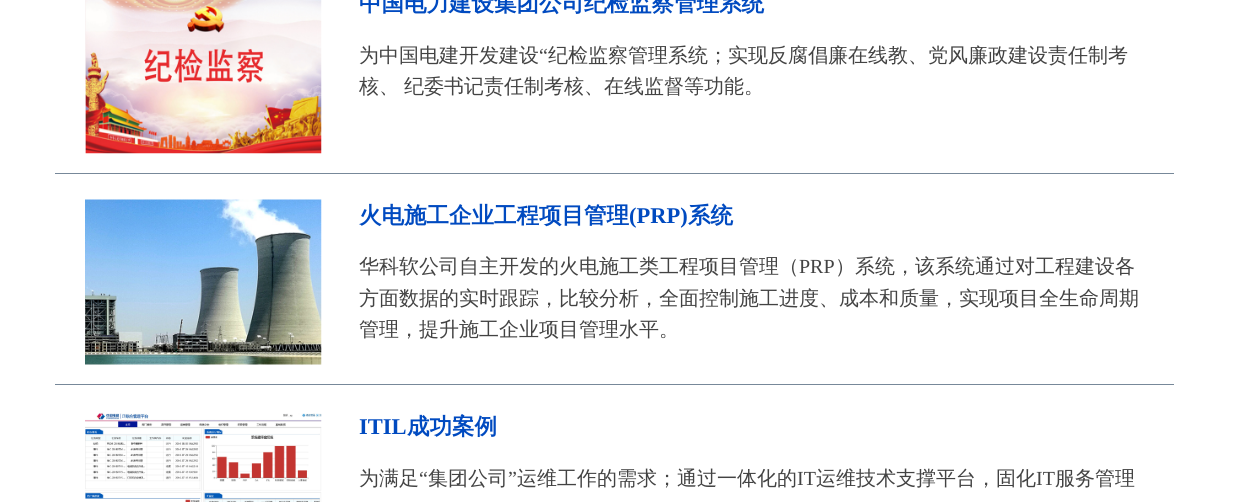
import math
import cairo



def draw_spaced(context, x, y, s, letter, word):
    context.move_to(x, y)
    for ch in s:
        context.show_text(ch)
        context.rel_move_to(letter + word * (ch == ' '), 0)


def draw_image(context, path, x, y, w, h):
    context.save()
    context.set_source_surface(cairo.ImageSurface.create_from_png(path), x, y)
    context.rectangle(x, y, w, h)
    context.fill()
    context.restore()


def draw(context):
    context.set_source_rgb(1, 1, 1)
    context.paint()
    context.set_source_rgb(119 / 255, 136 / 255, 153 / 255)
    context.rectangle(55, 173, 1119, 1)
    context.fill()
    draw_image(context, "images/1.png", 85, 0, 237, 154)
    context.rectangle(55, 384, 1119, 1)
    context.fill()
    draw_image(context, "images/2.png", 85, 199, 237, 166)
    draw_image(context, "images/3.png", 85, 412, 237, 90)
    context.select_font_face("WenQuanYi Zen Hei", cairo.FontSlant.NORMAL, cairo.FontWeight.BOLD)
    context.set_font_size(22.5)
    context.set_source_rgb(0, 74 / 255, 192 / 255)
    context.move_to(359, 11)
    context.show_text("中国电力建设集团公司纪检监察管理系统")
    context.select_font_face("WenQuanYi Zen Hei Medium")
    context.set_font_size(20)
    context.set_source_rgb(67 / 255, 67 / 255, 67 / 255)
    context.move_to(359, 62)
    context.show_text("为中国电建开发建设")
    context.select_font_face("Liberation Serif")
    context.move_to(539, 62)
    context.show_text("“")
    context.select_font_face("WenQuanYi Zen Hei Medium")
    context.move_to(548, 62)
    context.show_text("纪检监察管理系统；实现反腐倡廉在线教、党风廉政建设责任制考")
    draw_spaced(context, 359, 93, "核、 纪委书记责任制考核、在线监督等功能。", 0, -1)
    context.select_font_face("WenQuanYi Zen Hei", cairo.FontSlant.NORMAL, cairo.FontWeight.BOLD)
    context.set_font_size(22.5)
    context.set_source_rgb(0, 74 / 255, 192 / 255)
    context.move_to(359, 223)
    context.show_text("火电施工企业工程项目管理")
    context.select_font_face("Liberation Serif", cairo.FontSlant.NORMAL, cairo.FontWeight.BOLD)
    context.move_to(629, 223)
    context.show_text("(PRP)")
    context.select_font_face("WenQuanYi Zen Hei", cairo.FontSlant.NORMAL, cairo.FontWeight.BOLD)
    context.move_to(688, 223)
    context.show_text("系统")
    context.select_font_face("WenQuanYi Zen Hei Medium")
    context.set_font_size(20)
    context.set_source_rgb(67 / 255, 67 / 255, 67 / 255)
    context.move_to(359, 273)
    context.show_text("华科软公司自主开发的火电施工类工程项目管理（")
    context.select_font_face("Liberation Serif")
    context.move_to(799, 273)
    context.show_text("PRP")
    context.select_font_face("WenQuanYi Zen Hei Medium")
    context.move_to(835, 273)
    context.show_text("）系统，该系统通过对工程建设各")
    context.move_to(359, 305)
    context.show_text("方面数据的实时跟踪，比较分析，全面控制施工进度、成本和质量，实现项目全生命周期")
    context.move_to(359, 336)
    context.show_text("管理，提升施工企业项目管理水平。")
    context.select_font_face("Liberation Serif", cairo.FontSlant.NORMAL, cairo.FontWeight.BOLD)
    context.set_font_size(22.5)
    context.set_source_rgb(0, 74 / 255, 192 / 255)
    context.move_to(359, 434)
    context.show_text("ITIL")
    context.select_font_face("WenQuanYi Zen Hei", cairo.FontSlant.NORMAL, cairo.FontWeight.BOLD)
    context.move_to(407, 434)
    context.show_text("成功案例")
    context.select_font_face("WenQuanYi Zen Hei Medium")
    context.set_font_size(20)
    context.set_source_rgb(67 / 255, 67 / 255, 67 / 255)
    context.move_to(359, 485)
    context.show_text("为满足")
    context.select_font_face("Liberation Serif")
    context.move_to(419, 485)
    context.show_text("“")
    context.select_font_face("WenQuanYi Zen Hei Medium")
    context.move_to(428, 485)
    context.show_text("集团公司")
    context.select_font_face("Liberation Serif")
    context.move_to(508, 485)
    context.show_text("”")
    context.select_font_face("WenQuanYi Zen Hei Medium")
    context.move_to(517, 485)
    context.show_text("运维工作的需求；通过一体化的")
    context.select_font_face("Liberation Serif")
    context.move_to(797, 485)
    context.show_text("IT")
    context.select_font_face("WenQuanYi Zen Hei Medium")
    context.move_to(816, 485)
    context.show_text("运维技术支撑平台，固化")
    context.select_font_face("Liberation Serif")
    context.move_to(1036, 485)
    context.show_text("IT")
    context.select_font_face("WenQuanYi Zen Hei Medium")
    context.move_to(1055, 485)
    context.show_text("服务管理")


surface = cairo.ImageSurface(cairo.Format.RGB24, 1234, 502)
context = cairo.Context(surface)
options = cairo.FontOptions()
options.set_hint_metrics(cairo.HintMetrics.OFF)
options.set_hint_style(cairo.HintStyle.NONE)
context.set_font_options(options)
context.set_miter_limit(4)
draw(context)
surface.write_to_png("out.png")
